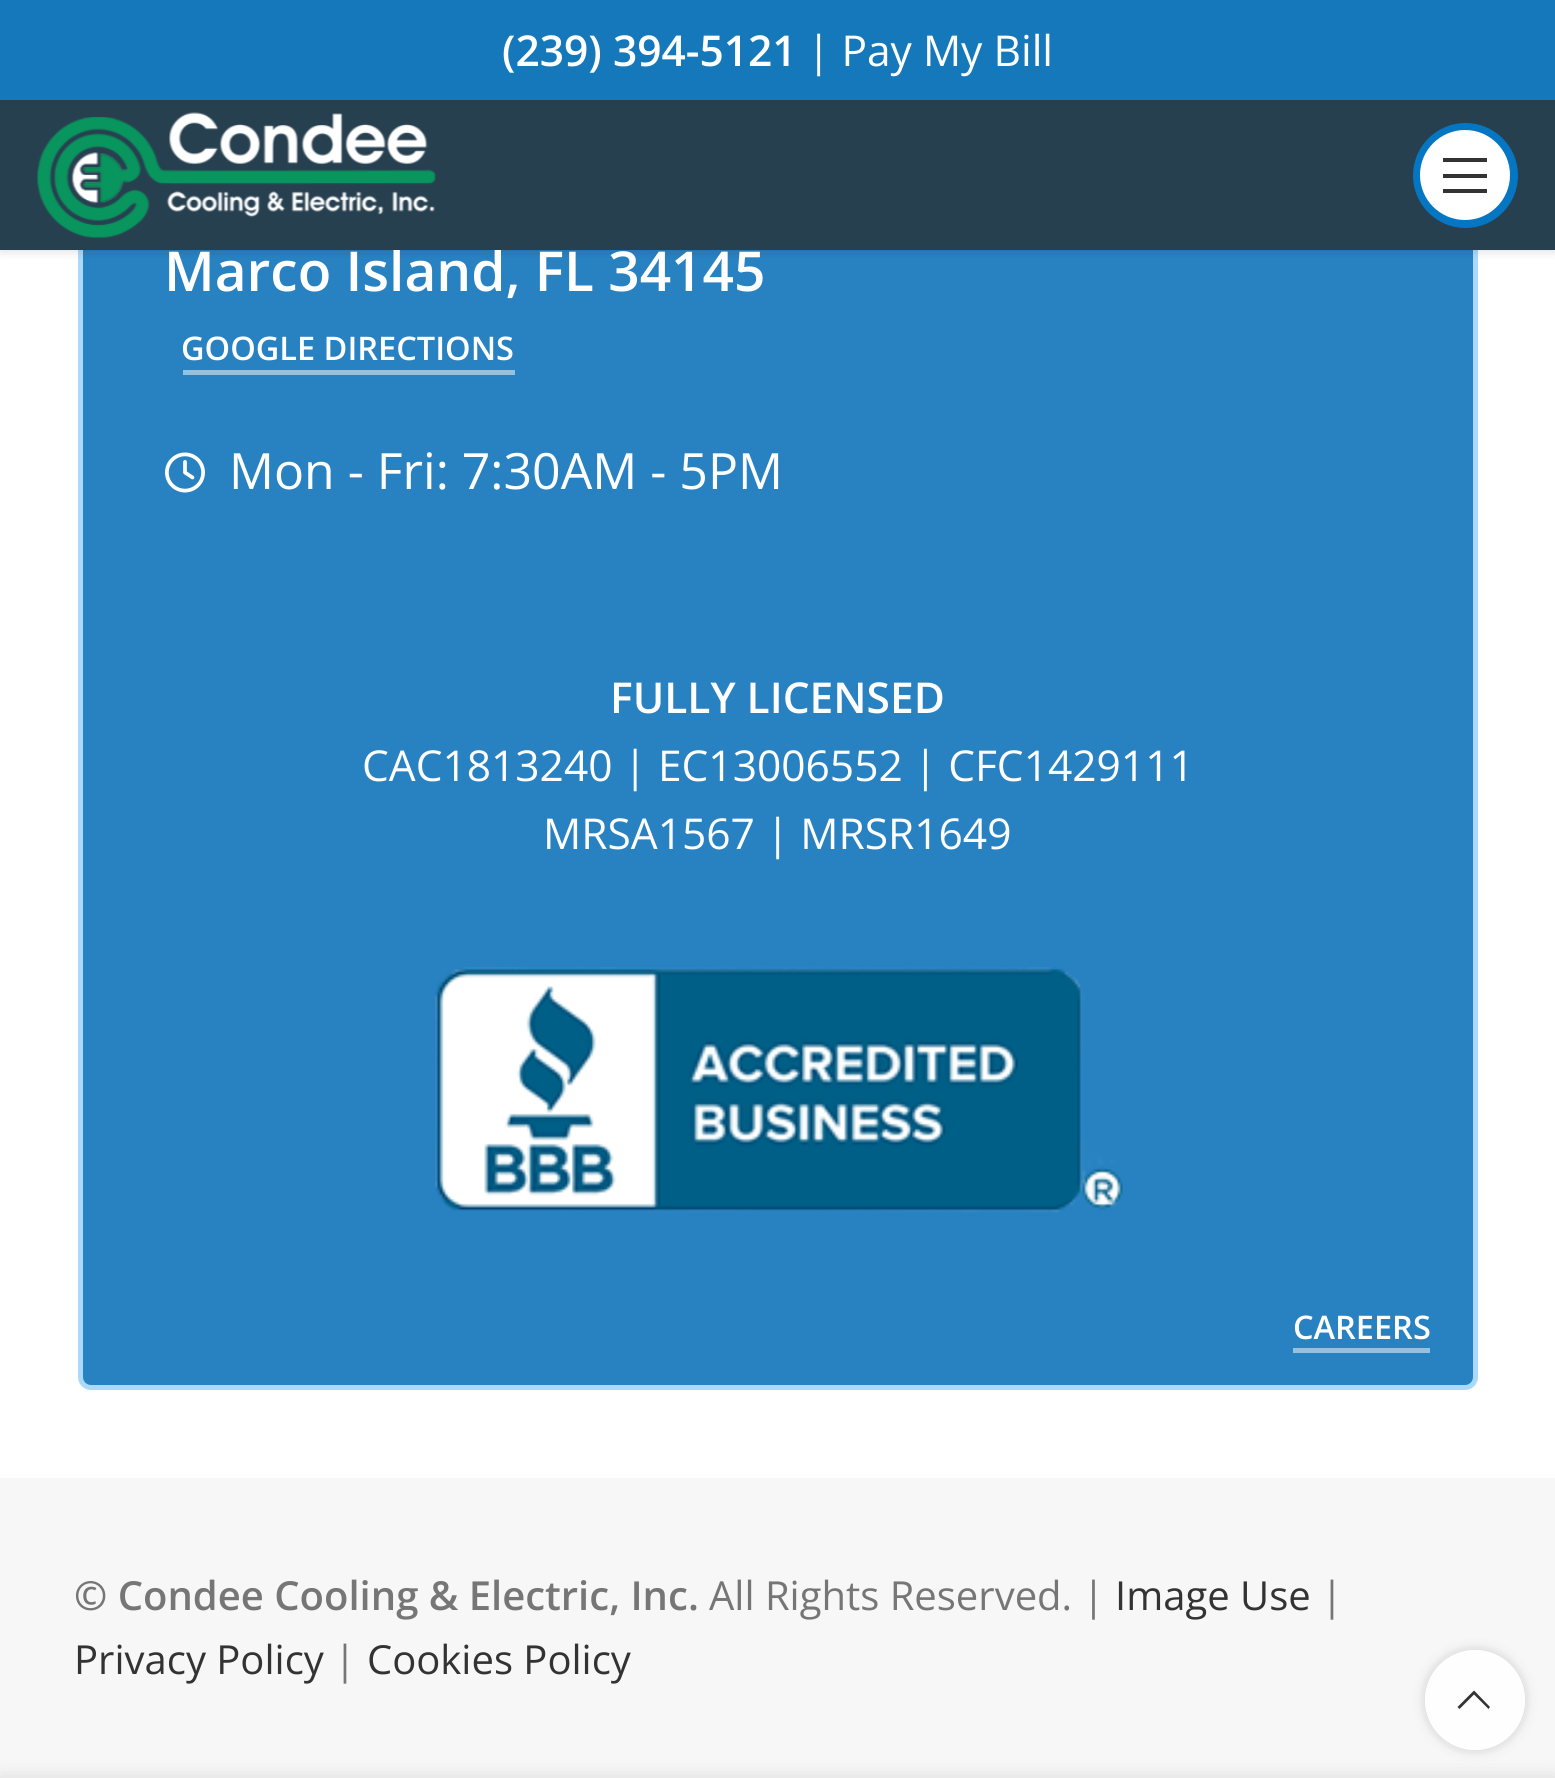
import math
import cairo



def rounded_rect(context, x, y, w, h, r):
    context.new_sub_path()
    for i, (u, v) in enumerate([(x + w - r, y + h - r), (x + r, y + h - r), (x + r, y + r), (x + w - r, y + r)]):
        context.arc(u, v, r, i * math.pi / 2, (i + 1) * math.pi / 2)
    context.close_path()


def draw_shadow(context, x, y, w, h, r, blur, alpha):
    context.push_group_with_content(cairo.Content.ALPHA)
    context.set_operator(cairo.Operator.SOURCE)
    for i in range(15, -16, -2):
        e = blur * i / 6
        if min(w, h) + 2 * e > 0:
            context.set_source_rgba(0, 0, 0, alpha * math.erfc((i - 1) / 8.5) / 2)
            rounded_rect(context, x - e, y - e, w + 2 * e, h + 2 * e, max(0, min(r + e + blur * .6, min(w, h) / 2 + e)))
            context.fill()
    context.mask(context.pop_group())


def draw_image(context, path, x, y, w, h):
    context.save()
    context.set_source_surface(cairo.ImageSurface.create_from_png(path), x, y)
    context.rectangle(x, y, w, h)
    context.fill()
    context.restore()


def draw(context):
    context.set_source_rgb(1, 1, 1)
    context.paint()
    context.set_source_rgb(40 / 255, 130 / 255, 194 / 255)
    rounded_rect(context, 80.5, -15.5, 1395, 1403, 10.5)
    context.fill_preserve()
    context.set_source_rgb(170 / 255, 217 / 255, 249 / 255)
    context.set_line_width(5)
    context.stroke()
    context.set_source_rgb(0, 0, 0)
    draw_shadow(context, 0, 3, 1555, 250, 0, 4, 0.1)
    context.set_source_rgb(21 / 255, 120 / 255, 186 / 255)
    context.rectangle(0, 0, 1555, 100)
    context.fill()
    context.set_source_rgb(148 / 255, 193 / 255, 225 / 255)
    context.rectangle(183, 370, 332, 5)
    context.fill()
    draw_image(context, "images/2.png", 165, 452, 40, 41)
    draw_image(context, "images/3.png", 435, 967, 688, 246)
    context.rectangle(1293, 1348, 137, 5)
    context.fill()
    context.set_source_rgb(247 / 255, 247 / 255, 247 / 255)
    context.rectangle(0, 1478, 1555, 300)
    context.fill()
    context.save()
    context.set_fill_rule(cairo.FillRule.EVEN_ODD)
    context.new_path()
    context.move_to(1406, 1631)
    context.line_to(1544, 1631)
    context.line_to(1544, 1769)
    context.line_to(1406, 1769)
    context.close_path()
    context.move_to(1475, 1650)
    context.curve_to(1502.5, 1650, 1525, 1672.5, 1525, 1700)
    context.curve_to(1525, 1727.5, 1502.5, 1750, 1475, 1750)
    context.curve_to(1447.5, 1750, 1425, 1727.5, 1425, 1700)
    context.curve_to(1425, 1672.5, 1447.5, 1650, 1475, 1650)
    context.close_path()
    context.clip()
    context.set_source_rgb(0, 0, 0)
    draw_shadow(context, 1425, 1650, 100, 100, 50, 6, 0.17)
    context.restore()
    context.set_source_rgba(1, 1, 1, 0.9)
    context.arc(1475, 1700, 50, 0, 2 * math.pi)
    context.fill()
    context.set_source_rgb(51 / 255, 51 / 255, 51 / 255)
    context.new_path()
    context.move_to(1488.5, 1709)
    context.line_to(1490, 1707)
    context.line_to(1474, 1690.5)
    context.line_to(1457.5, 1707)
    context.line_to(1459.5, 1709)
    context.line_to(1474, 1694.5)
    context.close_path()
    context.fill()
    context.set_source_rgb(0, 0, 0)
    draw_shadow(context, 0, 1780, 1555, 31, 0, 11, 0.14)
    context.select_font_face("Open Sans SemiBold")
    context.set_font_size(42.5)
    context.set_source_rgb(1, 1, 1)
    context.move_to(502, 66)
    context.show_text("(239) 394-5121")
    context.select_font_face("Open Sans")
    context.move_to(807, 66)
    context.show_text("| Pay My Bill")
    context.select_font_face("Open Sans SemiBold")
    context.set_font_size(55)
    context.move_to(164, 291)
    context.show_text("Marco Island, FL 34145")
    context.set_source_rgb(39 / 255, 64 / 255, 80 / 255)
    context.rectangle(0, 100, 1555, 150)
    context.fill()
    context.set_source_rgb(4 / 255, 118 / 255, 194 / 255)
    context.arc(1465.5, 175.5, 52.5, 0, 2 * math.pi)
    context.fill()
    context.set_source_rgb(1, 1, 1)
    context.arc(1465, 175, 45, 0, 2 * math.pi)
    context.fill()
    context.set_source_rgb(51 / 255, 51 / 255, 51 / 255)
    context.new_path()
    context.move_to(1443, 162)
    context.line_to(1487, 162)
    context.line_to(1487, 158)
    context.line_to(1443, 158)
    context.close_path()
    context.move_to(1443, 178)
    context.line_to(1487, 178)
    context.line_to(1487, 174)
    context.line_to(1443, 174)
    context.close_path()
    context.move_to(1443, 193)
    context.line_to(1487, 193)
    context.line_to(1487, 189)
    context.line_to(1443, 189)
    context.close_path()
    context.fill()
    draw_image(context, "images/1.png", 37, 112, 399, 126)
    context.set_font_size(32.5)
    context.set_source_rgb(1, 1, 1)
    context.move_to(181, 360)
    context.show_text("GOOGLE DIRECTIONS")
    context.select_font_face("Open Sans")
    context.set_font_size(50)
    context.move_to(229, 489)
    context.show_text("Mon - Fri: 7:30AM - 5PM")
    context.select_font_face("Open Sans SemiBold")
    context.set_font_size(42.5)
    context.move_to(610, 713)
    context.show_text("FULLY LICENSED")
    context.select_font_face("Open Sans")
    context.move_to(362, 781)
    context.show_text("CAC1813240 | EC13006552 | CFC1429111")
    context.move_to(543, 849)
    context.show_text("MRSA1567 | MRSR1649")
    context.select_font_face("Open Sans SemiBold")
    context.set_font_size(32.5)
    context.move_to(1293, 1339)
    context.show_text("CAREERS")
    context.set_font_size(40)
    context.set_source_rgb(118 / 255, 118 / 255, 118 / 255)
    context.move_to(74, 1610)
    context.show_text("© Condee Cooling & Electric, Inc.")
    context.select_font_face("Open Sans")
    context.move_to(709, 1610)
    context.show_text("All Rights Reserved. |")
    context.set_source_rgb(51 / 255, 51 / 255, 51 / 255)
    context.move_to(1115, 1610)
    context.show_text("Image Use")
    context.set_source_rgb(118 / 255, 118 / 255, 118 / 255)
    context.move_to(1321, 1610)
    context.show_text("|")
    context.set_source_rgb(51 / 255, 51 / 255, 51 / 255)
    context.move_to(74, 1674)
    context.show_text("Privacy Policy")
    context.set_source_rgb(118 / 255, 118 / 255, 118 / 255)
    context.move_to(334, 1674)
    context.show_text("|")
    context.set_source_rgb(51 / 255, 51 / 255, 51 / 255)
    context.move_to(367, 1674)
    context.show_text("Cookies Policy")


surface = cairo.ImageSurface(cairo.Format.RGB24, 1555, 1778)
context = cairo.Context(surface)
options = cairo.FontOptions()
options.set_hint_metrics(cairo.HintMetrics.OFF)
options.set_hint_style(cairo.HintStyle.NONE)
context.set_font_options(options)
context.set_miter_limit(4)
draw(context)
surface.write_to_png("out.png")
